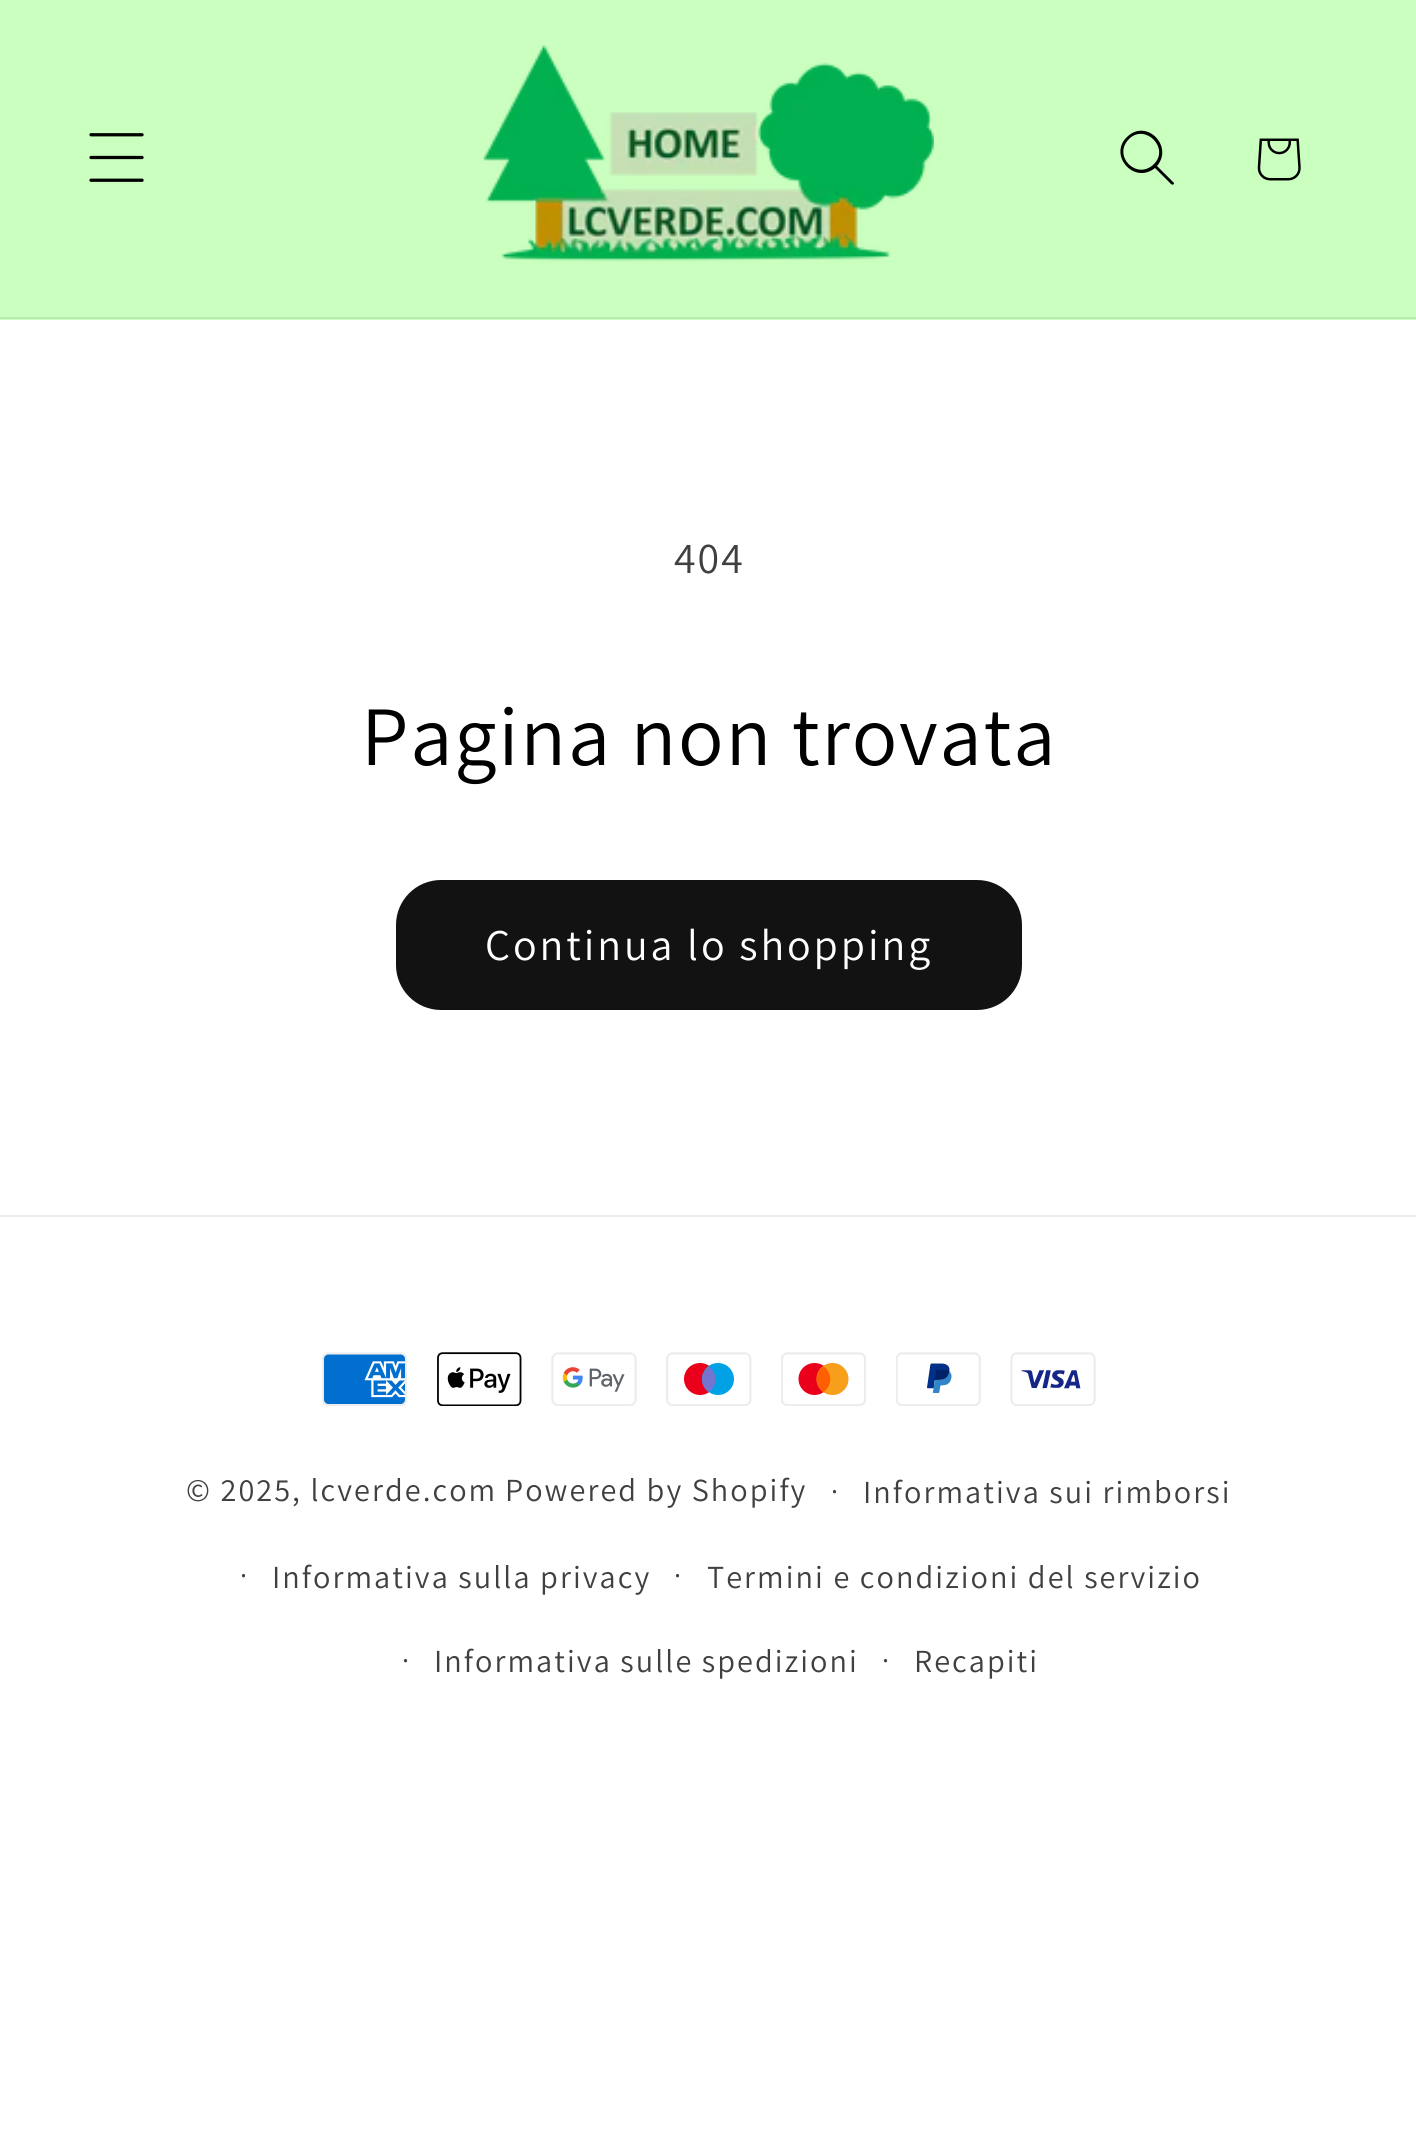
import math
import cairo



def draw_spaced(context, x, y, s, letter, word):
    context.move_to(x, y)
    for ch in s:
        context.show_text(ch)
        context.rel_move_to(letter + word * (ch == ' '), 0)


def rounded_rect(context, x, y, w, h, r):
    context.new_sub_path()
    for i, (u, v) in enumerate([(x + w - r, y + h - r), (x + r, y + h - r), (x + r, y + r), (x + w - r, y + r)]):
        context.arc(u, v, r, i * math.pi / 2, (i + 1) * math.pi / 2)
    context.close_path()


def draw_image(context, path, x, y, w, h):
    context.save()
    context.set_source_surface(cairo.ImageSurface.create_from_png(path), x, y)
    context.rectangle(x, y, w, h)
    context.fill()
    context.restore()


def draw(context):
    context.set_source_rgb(1, 1, 1)
    context.paint()
    context.set_source_rgb(202 / 255, 1, 191 / 255)
    context.rectangle(0, 0, 1416, 320)
    context.fill()
    context.set_source_rgb(186 / 255, 235 / 255, 176 / 255)
    context.rectangle(0, 317, 1416, 2)
    context.fill()
    draw_image(context, "images/1.png", 89, 133, 55, 49)
    draw_image(context, "images/2.png", 483, 45, 451, 217)
    context.set_source_rgb(0, 0, 0)
    context.set_fill_rule(cairo.FillRule.EVEN_ODD)
    context.new_path()
    context.move_to(1154, 164)
    context.curve_to(1137, 181, 1112, 156, 1129, 139)
    context.curve_to(1145, 123, 1170, 148, 1154, 164)
    context.move_to(1155, 168)
    context.curve_to(1134, 185, 1108, 155, 1127, 137)
    context.curve_to(1146, 118, 1174, 146, 1157, 166)
    context.line_to(1174, 183)
    context.curve_to(1174, 185, 1172, 185, 1171, 184)
    context.close_path()
    context.fill()
    draw_image(context, "images/3.png", 1257, 138, 44, 43)
    context.set_source_rgb(18 / 255, 18 / 255, 18 / 255)
    rounded_rect(context, 396, 880, 626, 130, 45)
    context.fill()
    context.set_source_rgb(235 / 255, 235 / 255, 235 / 255)
    context.rectangle(0, 1215, 1416, 2)
    context.fill()
    draw_image(context, "images/4.png", 322, 1352, 85, 54)
    draw_image(context, "images/5.png", 437, 1352, 85, 54)
    draw_image(context, "images/6.png", 551, 1352, 86, 54)
    draw_image(context, "images/7.png", 666, 1352, 86, 54)
    draw_image(context, "images/8.png", 781, 1352, 85, 54)
    draw_image(context, "images/9.png", 896, 1352, 85, 54)
    draw_image(context, "images/10.png", 1010, 1352, 86, 54)
    context.select_font_face("Assistant")
    context.set_font_size(43.9)
    context.set_source_rgb(64 / 255, 64 / 255, 64 / 255)
    draw_spaced(context, 674, 573, "404", 2, 0)
    context.set_font_size(84.5)
    context.set_source_rgb(0, 0, 0)
    draw_spaced(context, 361, 765, "Pagina non trovata", 1.7, 0)
    context.set_font_size(43.9)
    context.set_source_rgb(1, 1, 1)
    draw_spaced(context, 485, 960, "Continua lo shopping", 2.9, 0)
    context.set_font_size(32.2)
    context.set_source_rgb(64 / 255, 64 / 255, 64 / 255)
    draw_spaced(context, 186, 1501, "© 2025, lcverde.com", 2.05, 0)
    draw_spaced(context, 505, 1501, "Powered by Shopify", 2.05, 0)
    context.set_font_size(29)
    draw_spaced(context, 831, 1501, "·", 2.05, 0)
    context.set_font_size(32.2)
    draw_spaced(context, 863, 1503, "Informativa sui rimborsi", 2.05, 0)
    context.set_font_size(29)
    draw_spaced(context, 240, 1585, "·", 2.05, 0)
    context.set_font_size(32.2)
    draw_spaced(context, 272, 1588, "Informativa sulla privacy", 2.05, 0)
    context.set_font_size(29)
    draw_spaced(context, 674, 1585, "·", 2.05, 0)
    context.set_font_size(32.2)
    draw_spaced(context, 707, 1588, "Termini e condizioni del servizio", 2.05, 0)
    context.set_font_size(29)
    draw_spaced(context, 402, 1670, "·", 2.05, 0)
    context.set_font_size(32.2)
    draw_spaced(context, 434, 1672, "Informativa sulle spedizioni", 2.05, 0)
    context.set_font_size(29)
    draw_spaced(context, 882, 1670, "·", 2.05, 0)
    context.set_font_size(32.2)
    draw_spaced(context, 914, 1672, "Recapiti", 2.05, 0)


surface = cairo.ImageSurface(cairo.Format.RGB24, 1416, 2137)
context = cairo.Context(surface)
options = cairo.FontOptions()
options.set_hint_metrics(cairo.HintMetrics.OFF)
options.set_hint_style(cairo.HintStyle.NONE)
context.set_font_options(options)
context.set_miter_limit(4)
draw(context)
surface.write_to_png("out.png")
